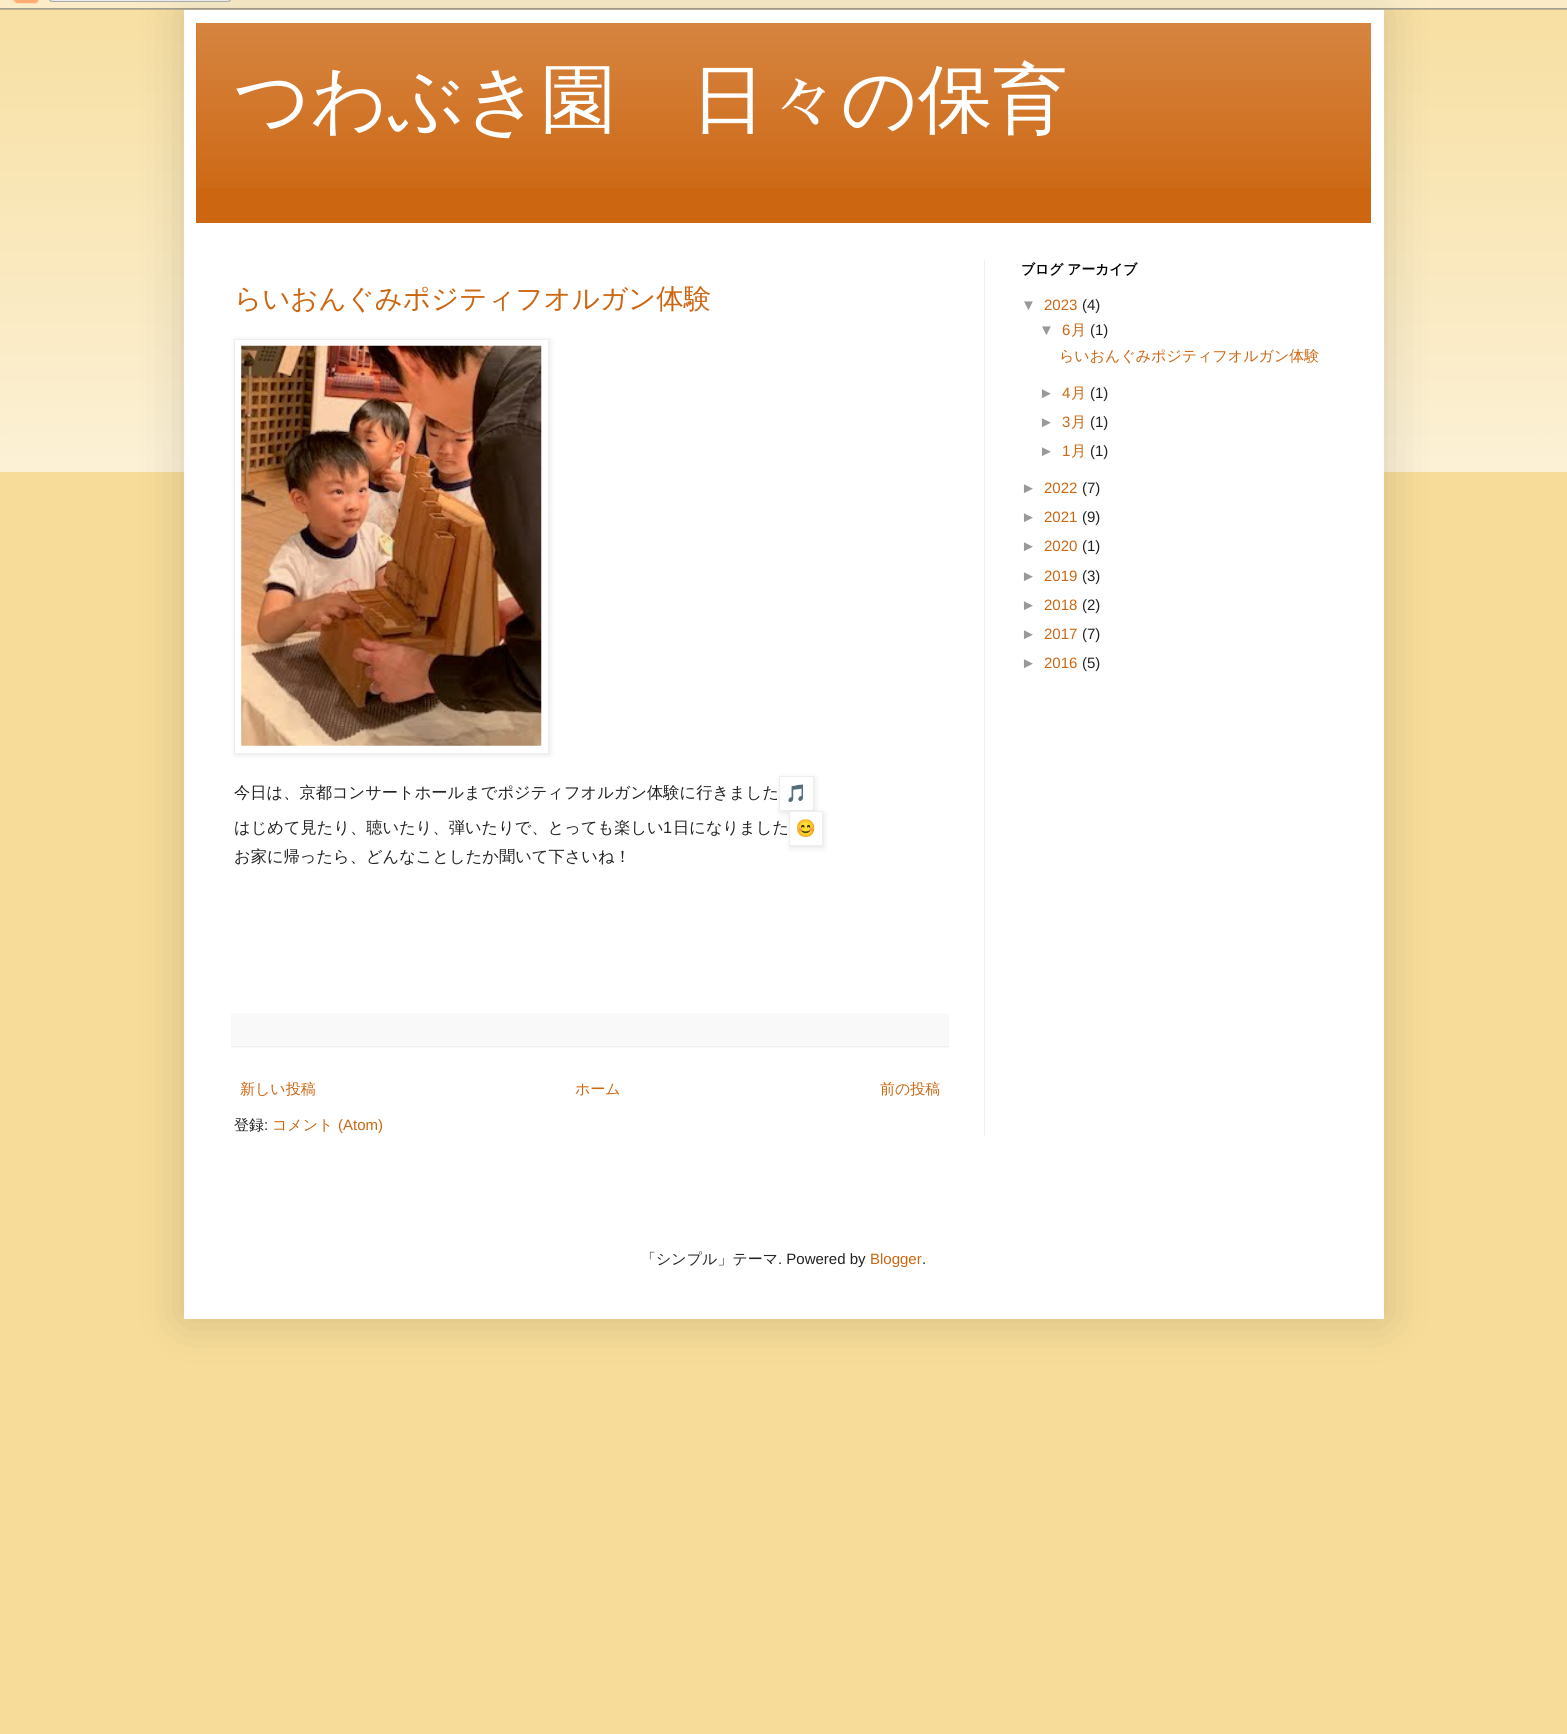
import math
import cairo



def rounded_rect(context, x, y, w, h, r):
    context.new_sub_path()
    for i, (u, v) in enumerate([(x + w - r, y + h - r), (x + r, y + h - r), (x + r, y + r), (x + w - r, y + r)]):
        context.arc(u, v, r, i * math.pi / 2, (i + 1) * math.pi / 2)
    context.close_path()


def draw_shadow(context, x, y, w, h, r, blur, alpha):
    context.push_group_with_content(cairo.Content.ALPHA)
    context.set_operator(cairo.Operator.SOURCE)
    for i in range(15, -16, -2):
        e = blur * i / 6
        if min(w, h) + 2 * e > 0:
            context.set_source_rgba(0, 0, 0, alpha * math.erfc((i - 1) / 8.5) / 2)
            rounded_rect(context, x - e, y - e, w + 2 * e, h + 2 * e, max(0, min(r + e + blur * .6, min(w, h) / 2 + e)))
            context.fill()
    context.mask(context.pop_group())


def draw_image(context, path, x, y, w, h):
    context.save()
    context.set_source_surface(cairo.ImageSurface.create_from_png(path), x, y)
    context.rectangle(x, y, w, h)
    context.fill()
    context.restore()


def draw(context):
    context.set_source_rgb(247 / 255, 220 / 255, 153 / 255)
    context.paint()
    draw_image(context, "images/1.png", 0, 0, 1567, 472)
    context.set_source_rgb(0, 0, 0)
    draw_shadow(context, 184, 10, 1200, 1309, 0, 25, 0.15)
    draw_image(context, "images/2.png", 0, 0, 1567, 10)
    context.set_source_rgb(1, 1, 1)
    context.rectangle(184, 10, 1200, 1309)
    context.fill()
    context.set_source_rgb(204 / 255, 102 / 255, 17 / 255)
    context.rectangle(196, 23, 1175, 200)
    context.fill()
    draw_image(context, "images/3.png", 196, 23, 1175, 165)
    context.set_source_rgb(238 / 255, 238 / 255, 238 / 255)
    context.rectangle(984, 260, 1, 876)
    context.fill()
    context.set_source_rgb(0, 0, 0)
    draw_shadow(context, 235, 340, 315, 415, 0, 3, 0.1)
    context.set_source_rgb(1, 1, 1)
    context.rectangle(234.5, 339.5, 314, 414)
    context.fill_preserve()
    context.set_source_rgb(238 / 255, 238 / 255, 238 / 255)
    context.set_line_width(1)
    context.stroke()
    draw_image(context, "images/4.png", 241, 345, 301, 401)
    context.set_source_rgb(0, 0, 0)
    draw_shadow(context, 780, 778, 35, 35, 0, 3, 0.1)
    context.set_source_rgb(1, 1, 1)
    context.rectangle(779.5, 776.5, 34, 34)
    context.fill_preserve()
    context.set_source_rgb(238 / 255, 238 / 255, 238 / 255)
    context.stroke()
    draw_image(context, "images/5.png", 788, 784, 15, 18)
    context.set_source_rgb(0, 0, 0)
    draw_shadow(context, 790, 813, 34, 35, 0, 3, 0.1)
    context.set_source_rgb(1, 1, 1)
    context.rectangle(789.5, 811.5, 33, 34)
    context.fill_preserve()
    context.set_source_rgb(238 / 255, 238 / 255, 238 / 255)
    context.stroke()
    draw_image(context, "images/6.png", 797, 819, 18, 18)
    context.set_source_rgb(249 / 255, 249 / 255, 249 / 255)
    context.rectangle(231, 1013, 718, 35)
    context.fill()
    context.set_source_rgb(238 / 255, 238 / 255, 238 / 255)
    context.rectangle(231, 1046, 718, 1)
    context.fill()
    context.select_font_face("WenQuanYi Zen Hei Medium")
    context.set_font_size(75)
    context.set_source_rgb(1, 1, 1)
    context.move_to(234, 125)
    context.show_text("つわぶき園　日々の保育")
    context.set_font_size(27.5)
    context.set_source_rgb(204 / 255, 102 / 255, 17 / 255)
    context.move_to(234, 308)
    context.show_text("らいおんぐみポジティフオルガン体験")
    context.set_font_size(16.25)
    context.set_source_rgb(34 / 255, 34 / 255, 34 / 255)
    context.move_to(234, 798)
    context.show_text("今日は、京都コンサートホールまでポジティフオルガン体験に行きました")
    context.move_to(234, 833)
    context.show_text("はじめて見たり、聴いたり、弾いたりで、とっても楽しい")
    context.select_font_face("Liberation Sans")
    context.move_to(663, 833)
    context.show_text("1")
    context.select_font_face("WenQuanYi Zen Hei Medium")
    context.move_to(673, 833)
    context.show_text("日になりました")
    context.move_to(234, 862)
    context.show_text("お家に帰ったら、どんなことしたか聞いて下さいね！")
    context.set_font_size(15)
    context.set_source_rgb(204 / 255, 102 / 255, 17 / 255)
    context.move_to(240, 1094)
    context.show_text("新しい投稿")
    context.move_to(575, 1094)
    context.show_text("ホーム")
    context.move_to(880, 1094)
    context.show_text("前の投稿")
    context.set_source_rgb(34 / 255, 34 / 255, 34 / 255)
    context.move_to(234, 1130)
    context.show_text("登録")
    context.select_font_face("Liberation Sans")
    context.move_to(264, 1130)
    context.show_text(":")
    context.select_font_face("WenQuanYi Zen Hei Medium")
    context.set_source_rgb(204 / 255, 102 / 255, 17 / 255)
    context.move_to(272, 1130)
    context.show_text("コメント")
    context.select_font_face("Liberation Sans")
    context.move_to(338, 1130)
    context.show_text("(Atom)")
    context.select_font_face("WenQuanYi Zen Hei", cairo.FontSlant.NORMAL, cairo.FontWeight.BOLD)
    context.set_font_size(13.75)
    context.set_source_rgb(0, 0, 0)
    context.move_to(1021, 274)
    context.show_text("ブログ アーカイブ")
    context.select_font_face("Liberation Sans")
    context.set_font_size(15)
    context.set_source_rgb(153 / 255, 153 / 255, 153 / 255)
    context.move_to(1021, 310)
    context.show_text("▼")
    context.set_source_rgb(204 / 255, 102 / 255, 17 / 255)
    context.move_to(1044, 310)
    context.show_text("2023")
    context.set_source_rgb(34 / 255, 34 / 255, 34 / 255)
    context.move_to(1082, 310)
    context.show_text("(4)")
    context.set_source_rgb(153 / 255, 153 / 255, 153 / 255)
    context.move_to(1039, 335)
    context.show_text("▼")
    context.set_source_rgb(204 / 255, 102 / 255, 17 / 255)
    context.move_to(1062, 335)
    context.show_text("6")
    context.select_font_face("WenQuanYi Zen Hei Medium")
    context.move_to(1071, 335)
    context.show_text("月")
    context.select_font_face("Liberation Sans")
    context.set_source_rgb(34 / 255, 34 / 255, 34 / 255)
    context.move_to(1090, 335)
    context.show_text("(1)")
    context.select_font_face("WenQuanYi Zen Hei Medium")
    context.set_source_rgb(204 / 255, 102 / 255, 17 / 255)
    context.move_to(1059, 361)
    context.show_text("らいおんぐみポジティフオルガン体験")
    context.select_font_face("Liberation Sans")
    context.set_source_rgb(153 / 255, 153 / 255, 153 / 255)
    context.move_to(1039, 398)
    context.show_text("►")
    context.set_source_rgb(204 / 255, 102 / 255, 17 / 255)
    context.move_to(1062, 398)
    context.show_text("4")
    context.select_font_face("WenQuanYi Zen Hei Medium")
    context.move_to(1071, 398)
    context.show_text("月")
    context.select_font_face("Liberation Sans")
    context.set_source_rgb(34 / 255, 34 / 255, 34 / 255)
    context.move_to(1090, 398)
    context.show_text("(1)")
    context.set_source_rgb(153 / 255, 153 / 255, 153 / 255)
    context.move_to(1039, 427)
    context.show_text("►")
    context.set_source_rgb(204 / 255, 102 / 255, 17 / 255)
    context.move_to(1062, 427)
    context.show_text("3")
    context.select_font_face("WenQuanYi Zen Hei Medium")
    context.move_to(1071, 427)
    context.show_text("月")
    context.select_font_face("Liberation Sans")
    context.set_source_rgb(34 / 255, 34 / 255, 34 / 255)
    context.move_to(1090, 427)
    context.show_text("(1)")
    context.set_source_rgb(153 / 255, 153 / 255, 153 / 255)
    context.move_to(1039, 456)
    context.show_text("►")
    context.set_source_rgb(204 / 255, 102 / 255, 17 / 255)
    context.move_to(1062, 456)
    context.show_text("1")
    context.select_font_face("WenQuanYi Zen Hei Medium")
    context.move_to(1071, 456)
    context.show_text("月")
    context.select_font_face("Liberation Sans")
    context.set_source_rgb(34 / 255, 34 / 255, 34 / 255)
    context.move_to(1090, 456)
    context.show_text("(1)")
    context.set_source_rgb(153 / 255, 153 / 255, 153 / 255)
    context.move_to(1021, 493)
    context.show_text("►")
    context.set_source_rgb(204 / 255, 102 / 255, 17 / 255)
    context.move_to(1044, 493)
    context.show_text("2022")
    context.set_source_rgb(34 / 255, 34 / 255, 34 / 255)
    context.move_to(1082, 493)
    context.show_text("(7)")
    context.set_source_rgb(153 / 255, 153 / 255, 153 / 255)
    context.move_to(1021, 522)
    context.show_text("►")
    context.set_source_rgb(204 / 255, 102 / 255, 17 / 255)
    context.move_to(1044, 522)
    context.show_text("2021")
    context.set_source_rgb(34 / 255, 34 / 255, 34 / 255)
    context.move_to(1082, 522)
    context.show_text("(9)")
    context.set_source_rgb(153 / 255, 153 / 255, 153 / 255)
    context.move_to(1021, 551)
    context.show_text("►")
    context.set_source_rgb(204 / 255, 102 / 255, 17 / 255)
    context.move_to(1044, 551)
    context.show_text("2020")
    context.set_source_rgb(34 / 255, 34 / 255, 34 / 255)
    context.move_to(1082, 551)
    context.show_text("(1)")
    context.set_source_rgb(153 / 255, 153 / 255, 153 / 255)
    context.move_to(1021, 581)
    context.show_text("►")
    context.set_source_rgb(204 / 255, 102 / 255, 17 / 255)
    context.move_to(1044, 581)
    context.show_text("2019")
    context.set_source_rgb(34 / 255, 34 / 255, 34 / 255)
    context.move_to(1082, 581)
    context.show_text("(3)")
    context.set_source_rgb(153 / 255, 153 / 255, 153 / 255)
    context.move_to(1021, 610)
    context.show_text("►")
    context.set_source_rgb(204 / 255, 102 / 255, 17 / 255)
    context.move_to(1044, 610)
    context.show_text("2018")
    context.set_source_rgb(34 / 255, 34 / 255, 34 / 255)
    context.move_to(1082, 610)
    context.show_text("(2)")
    context.set_source_rgb(153 / 255, 153 / 255, 153 / 255)
    context.move_to(1021, 639)
    context.show_text("►")
    context.set_source_rgb(204 / 255, 102 / 255, 17 / 255)
    context.move_to(1044, 639)
    context.show_text("2017")
    context.set_source_rgb(34 / 255, 34 / 255, 34 / 255)
    context.move_to(1082, 639)
    context.show_text("(7)")
    context.set_source_rgb(153 / 255, 153 / 255, 153 / 255)
    context.move_to(1021, 668)
    context.show_text("►")
    context.set_source_rgb(204 / 255, 102 / 255, 17 / 255)
    context.move_to(1044, 668)
    context.show_text("2016")
    context.set_source_rgb(34 / 255, 34 / 255, 34 / 255)
    context.move_to(1082, 668)
    context.show_text("(5)")
    context.select_font_face("WenQuanYi Zen Hei Medium")
    context.move_to(641, 1264)
    context.show_text("「シンプル」テーマ")
    context.select_font_face("Liberation Sans")
    context.move_to(778, 1264)
    context.show_text(". Powered by")
    context.set_source_rgb(204 / 255, 102 / 255, 17 / 255)
    context.move_to(870, 1264)
    context.show_text("Blogger")
    context.set_source_rgb(34 / 255, 34 / 255, 34 / 255)
    context.move_to(922, 1264)
    context.show_text(".")


surface = cairo.ImageSurface(cairo.Format.RGB24, 1567, 1734)
context = cairo.Context(surface)
options = cairo.FontOptions()
options.set_hint_metrics(cairo.HintMetrics.OFF)
options.set_hint_style(cairo.HintStyle.NONE)
context.set_font_options(options)
context.set_miter_limit(4)
draw(context)
surface.write_to_png("out.png")
